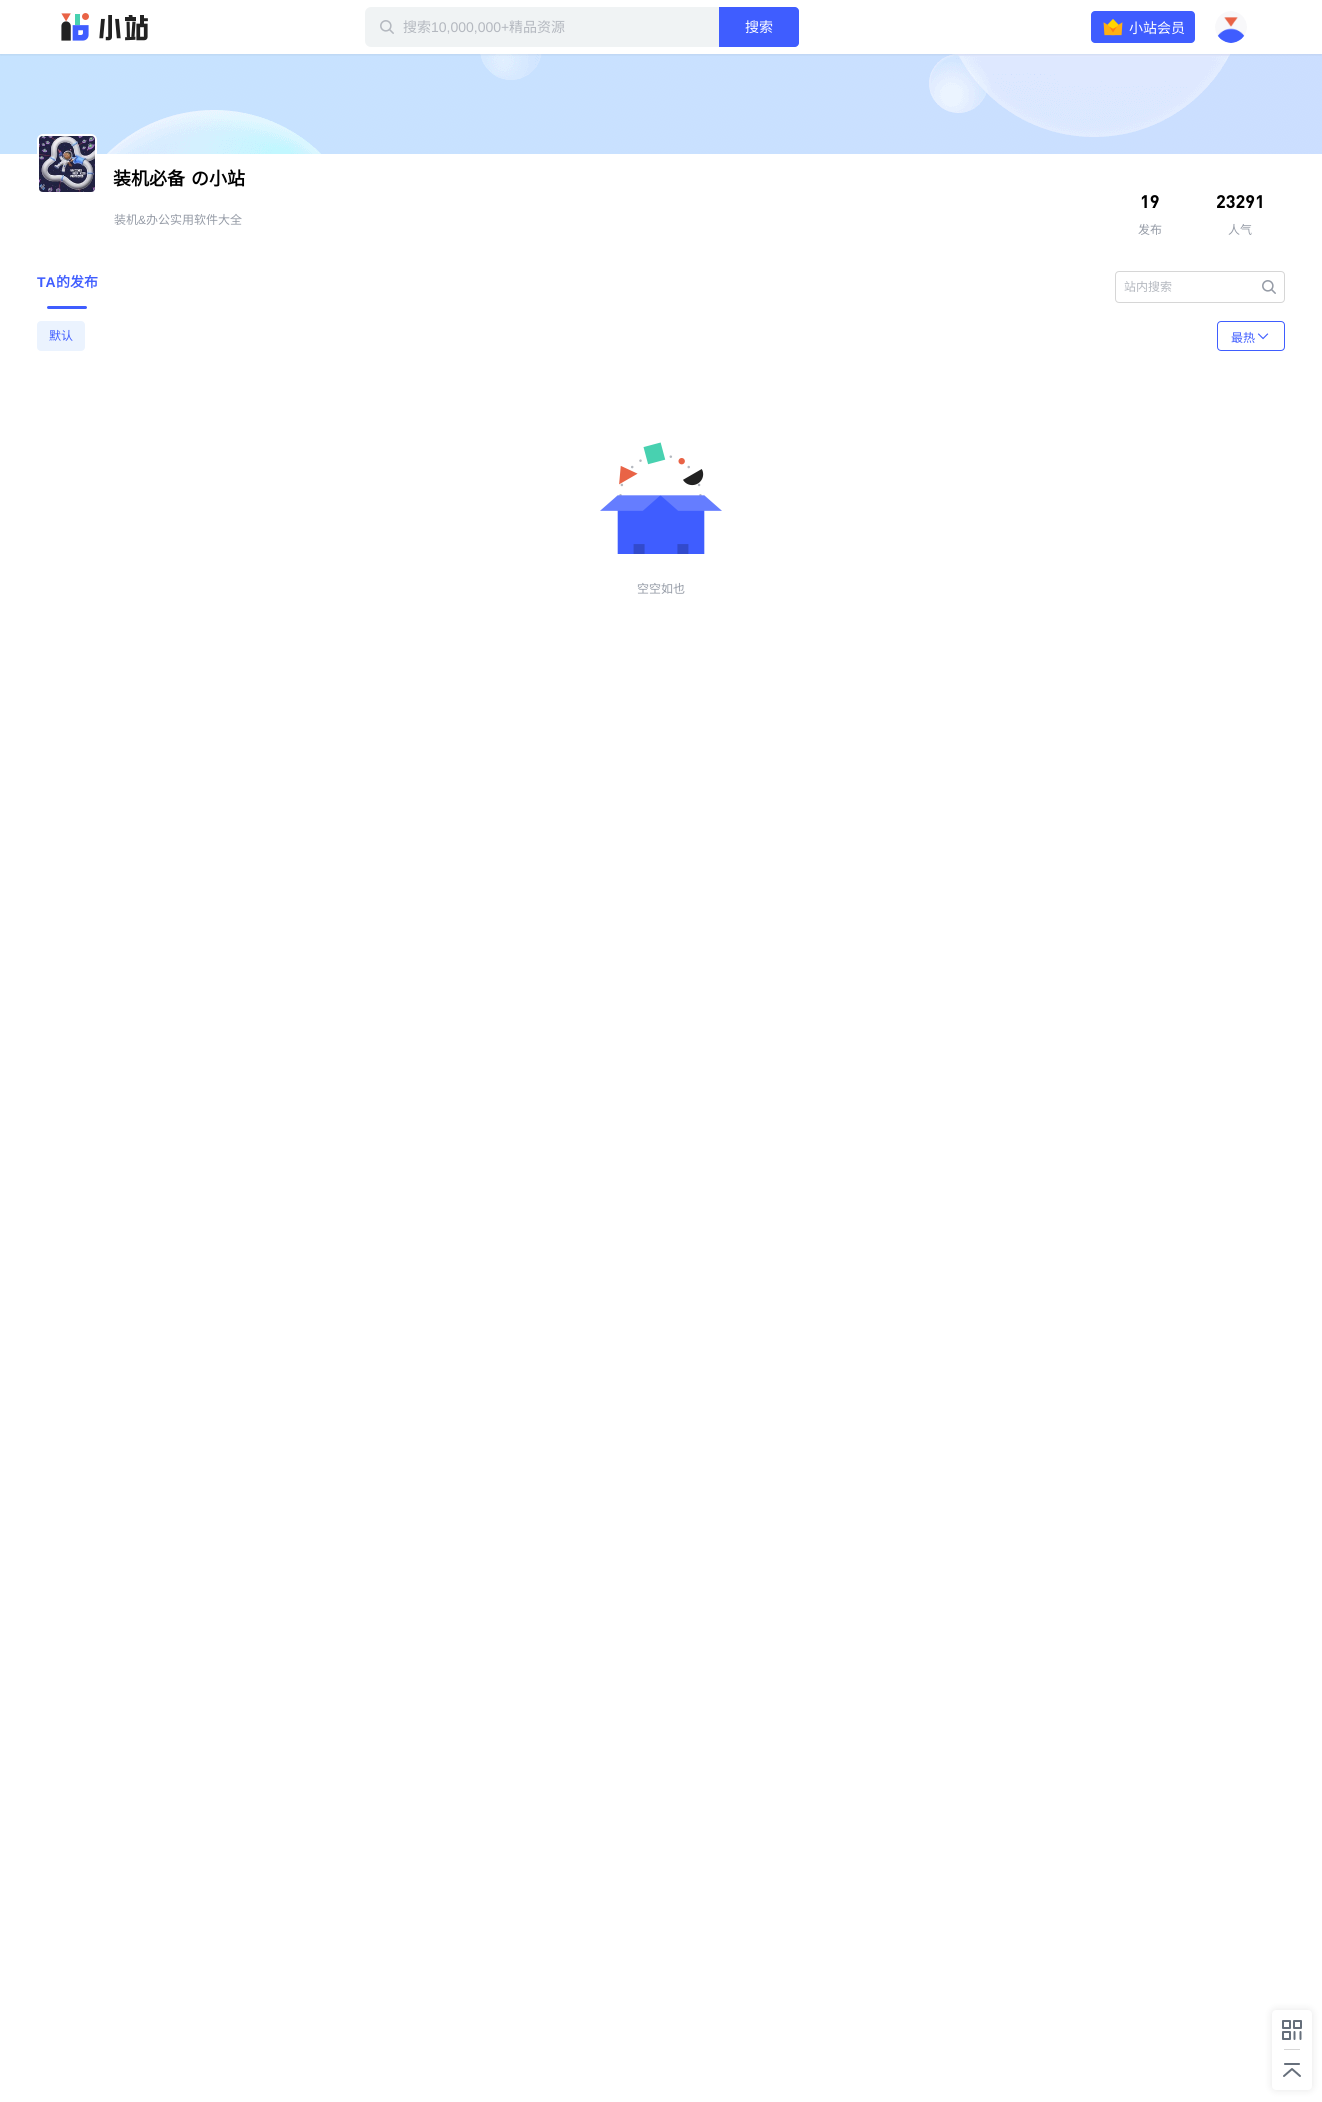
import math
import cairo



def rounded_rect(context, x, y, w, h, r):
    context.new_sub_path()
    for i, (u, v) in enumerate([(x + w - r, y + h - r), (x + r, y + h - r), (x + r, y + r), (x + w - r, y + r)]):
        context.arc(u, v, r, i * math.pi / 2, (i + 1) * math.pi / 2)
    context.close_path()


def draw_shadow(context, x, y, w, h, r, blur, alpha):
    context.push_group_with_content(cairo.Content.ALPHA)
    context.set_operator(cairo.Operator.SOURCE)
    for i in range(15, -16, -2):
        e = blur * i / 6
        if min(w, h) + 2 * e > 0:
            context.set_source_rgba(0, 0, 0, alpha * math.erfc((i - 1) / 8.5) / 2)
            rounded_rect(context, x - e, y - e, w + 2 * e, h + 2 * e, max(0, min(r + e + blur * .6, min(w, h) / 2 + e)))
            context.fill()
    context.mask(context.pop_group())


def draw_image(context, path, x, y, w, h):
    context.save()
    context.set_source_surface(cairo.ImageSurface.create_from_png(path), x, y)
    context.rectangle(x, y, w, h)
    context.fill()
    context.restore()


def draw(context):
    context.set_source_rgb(1, 1, 1)
    context.paint()
    draw_image(context, "images/5.png", 0, 54, 1322, 100)
    context.save()
    context.rectangle(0, 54, 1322, 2)
    context.clip()
    context.set_source_rgb(0, 0, 0)
    draw_shadow(context, 0, 0, 1322, 54, 0, 2.5, 0.1)
    context.restore()
    draw_image(context, "images/1.png", 61, 13, 87, 28)
    context.set_source_rgb(240 / 255, 243 / 255, 244 / 255)
    rounded_rect(context, 365, 7, 434, 40, 6)
    context.fill()
    draw_image(context, "images/2.png", 380, 20, 14, 14)
    context.set_source_rgb(63 / 255, 93 / 255, 1)
    context.new_path()
    context.move_to(719, 7)
    context.line_to(795, 7)
    context.curve_to(797, 7, 799, 9, 799, 11)
    context.line_to(799, 43)
    context.curve_to(799, 45, 797, 47, 795, 47)
    context.line_to(719, 47)
    context.close_path()
    context.fill()
    rounded_rect(context, 1091, 11, 104, 32, 4)
    context.fill()
    draw_image(context, "images/3.png", 1103, 19, 20, 17)
    draw_image(context, "images/4.png", 1215, 11, 32, 32)
    rounded_rect(context, 38, 135, 58, 58, 5)
    context.set_source_rgb(1, 1, 1)
    context.stroke()
    draw_image(context, "images/6.png", 39, 136, 56, 56)
    context.set_source_rgb(63 / 255, 93 / 255, 1)
    rounded_rect(context, 47, 306, 40, 3, 1.5)
    context.fill()
    rounded_rect(context, 1115.5, 271.5, 169, 31, 3.5)
    context.set_source_rgb(214 / 255, 214 / 255, 214 / 255)
    context.set_line_width(1)
    context.stroke()
    draw_image(context, "images/7.png", 1262, 280, 14, 14)
    context.set_source_rgb(235 / 255, 243 / 255, 254 / 255)
    rounded_rect(context, 37, 321, 48, 30, 4)
    context.fill()
    rounded_rect(context, 1217.5, 321.5, 67, 29, 3.5)
    context.set_source_rgb(63 / 255, 93 / 255, 1)
    context.stroke()
    draw_image(context, "images/8.png", 1257, 333, 12, 7)
    draw_image(context, "images/9.png", 600, 442, 122, 112)
    context.set_source_rgb(0, 0, 0)
    draw_shadow(context, 1272, 2010, 40, 80, 4, 4, 0.1)
    context.set_source_rgb(1, 1, 1)
    rounded_rect(context, 1272, 2010, 40, 80, 4)
    context.fill()
    draw_image(context, "images/10.png", 1282, 2020, 20, 20)
    context.set_source_rgb(214 / 255, 214 / 255, 214 / 255)
    context.rectangle(1284, 2049, 16, 1)
    context.fill()
    draw_image(context, "images/11.png", 1283, 2063, 18, 14)
    context.select_font_face("Noto Sans CJK SC")
    context.set_font_size(14)
    context.set_source_rgb(180 / 255, 184 / 255, 191 / 255)
    context.move_to(403, 32)
    context.show_text("搜索")
    context.select_font_face("Liberation Sans")
    context.move_to(431, 32)
    context.show_text("10,000,000+")
    context.select_font_face("Noto Sans CJK SC")
    context.move_to(509, 32)
    context.show_text("精品资源")
    context.set_source_rgb(1, 1, 1)
    context.move_to(745, 32)
    context.show_text("搜索")
    context.move_to(1129, 33)
    context.show_text("小站会员")
    context.select_font_face("Noto Sans CJK SC", cairo.FontSlant.NORMAL, cairo.FontWeight.BOLD)
    context.set_font_size(18)
    context.set_source_rgb(0, 0, 0)
    context.move_to(113, 185)
    context.show_text("装机必备")
    context.move_to(191, 185)
    context.show_text("の小站")
    context.select_font_face("Noto Sans CJK SC")
    context.set_font_size(12)
    context.set_source_rgb(149 / 255, 155 / 255, 166 / 255)
    context.move_to(114, 224)
    context.show_text("装机")
    context.select_font_face("Liberation Sans")
    context.move_to(138, 224)
    context.show_text("&")
    context.select_font_face("Noto Sans CJK SC")
    context.move_to(146, 224)
    context.show_text("办公实用软件大全")
    context.select_font_face("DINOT", cairo.FontSlant.NORMAL, cairo.FontWeight.BOLD)
    context.set_font_size(18)
    context.set_source_rgb(0, 0, 0)
    context.move_to(1140, 208)
    context.show_text("19")
    context.select_font_face("Noto Sans CJK SC")
    context.set_font_size(12)
    context.set_source_rgb(149 / 255, 155 / 255, 166 / 255)
    context.move_to(1138, 234)
    context.show_text("发布")
    context.select_font_face("DINOT", cairo.FontSlant.NORMAL, cairo.FontWeight.BOLD)
    context.set_font_size(18)
    context.set_source_rgb(0, 0, 0)
    context.move_to(1216, 208)
    context.show_text("23291")
    context.select_font_face("Noto Sans CJK SC")
    context.set_font_size(12)
    context.set_source_rgb(149 / 255, 155 / 255, 166 / 255)
    context.move_to(1228, 234)
    context.show_text("人气")
    context.select_font_face("Liberation Sans", cairo.FontSlant.NORMAL, cairo.FontWeight.BOLD)
    context.set_font_size(14)
    context.set_source_rgb(63 / 255, 93 / 255, 1)
    context.move_to(37, 287)
    context.show_text("TA")
    context.select_font_face("Noto Sans CJK SC", cairo.FontSlant.NORMAL, cairo.FontWeight.BOLD)
    context.move_to(56, 287)
    context.show_text("的发布")
    context.select_font_face("Noto Sans CJK SC")
    context.set_font_size(12)
    context.set_source_rgb(180 / 255, 184 / 255, 191 / 255)
    context.move_to(1124, 291)
    context.show_text("站内搜索")
    context.set_source_rgb(63 / 255, 93 / 255, 1)
    context.move_to(49, 340)
    context.show_text("默认")
    context.move_to(1231, 342)
    context.show_text("最热")
    context.set_source_rgb(149 / 255, 155 / 255, 166 / 255)
    context.move_to(637, 593)
    context.show_text("空空如也")


surface = cairo.ImageSurface(cairo.Format.RGB24, 1322, 2102)
context = cairo.Context(surface)
options = cairo.FontOptions()
options.set_hint_metrics(cairo.HintMetrics.OFF)
options.set_hint_style(cairo.HintStyle.NONE)
context.set_font_options(options)
context.set_miter_limit(4)
draw(context)
surface.write_to_png("out.png")
